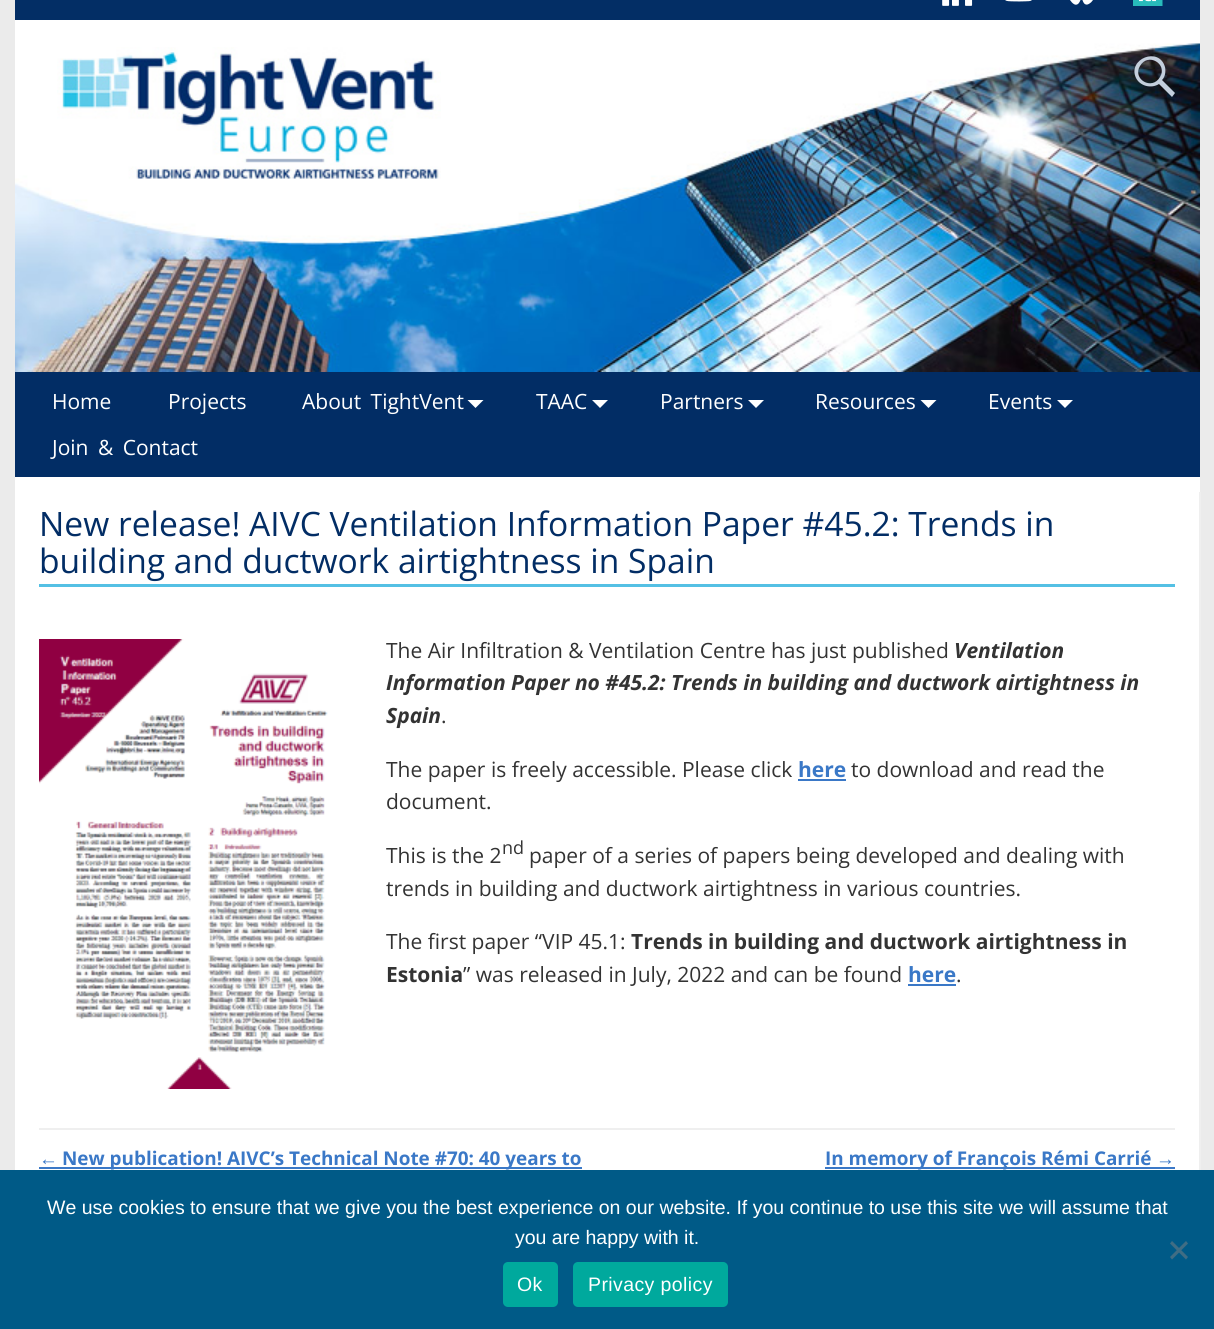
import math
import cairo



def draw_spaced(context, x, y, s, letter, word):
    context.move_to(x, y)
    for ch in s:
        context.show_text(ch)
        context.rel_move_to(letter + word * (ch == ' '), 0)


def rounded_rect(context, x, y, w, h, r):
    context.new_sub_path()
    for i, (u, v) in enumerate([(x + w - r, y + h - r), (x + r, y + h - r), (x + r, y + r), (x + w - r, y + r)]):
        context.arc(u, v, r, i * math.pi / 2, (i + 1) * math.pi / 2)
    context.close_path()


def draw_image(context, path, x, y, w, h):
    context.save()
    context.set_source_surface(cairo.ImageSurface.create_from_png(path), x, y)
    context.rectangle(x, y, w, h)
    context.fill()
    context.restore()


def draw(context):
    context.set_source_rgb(235 / 255, 235 / 255, 235 / 255)
    context.paint()
    context.set_source_rgb(1, 1, 1)
    context.rectangle(15, 20, 1185, 23)
    context.fill()
    context.set_source_rgb(3 / 255, 46 / 255, 101 / 255)
    context.rectangle(15, 0, 1185, 20)
    context.fill()
    draw_image(context, "images/1.png", 942, 0, 31, 6)
    draw_image(context, "images/2.png", 1005, 0, 27, 2)
    draw_image(context, "images/3.png", 1070, 0, 23, 5)
    draw_image(context, "images/4.png", 1133, 0, 30, 6)
    draw_image(context, "images/5.png", 15, 43, 1185, 329)
    draw_image(context, "images/6.png", 57, 47, 384, 132)
    context.set_source_rgb(196 / 255, 207 / 255, 221 / 255)
    context.new_path()
    context.move_to(1175, 93)
    context.line_to(1172, 97)
    context.line_to(1159, 84)
    context.curve_to(1151, 89, 1140, 86, 1136, 78)
    context.curve_to(1127, 59, 1159, 46, 1165, 67)
    context.curve_to(1166, 72, 1165, 77, 1162, 80)
    context.close_path()
    context.move_to(1140, 66)
    context.curve_to(1132, 79, 1152, 91, 1160, 77)
    context.curve_to(1168, 64, 1148, 52, 1140, 66)
    context.close_path()
    context.fill()
    context.set_source_rgb(2 / 255, 45 / 255, 101 / 255)
    context.rectangle(15, 372, 1185, 105)
    context.fill()
    context.set_source_rgb(1, 1, 1)
    context.new_path()
    context.move_to(467.5, 400)
    context.line_to(483.5, 400)
    context.line_to(475.5, 408)
    context.close_path()
    context.fill()
    context.new_path()
    context.move_to(592, 400)
    context.line_to(608, 400)
    context.line_to(600, 408)
    context.close_path()
    context.fill()
    context.new_path()
    context.move_to(748, 400)
    context.line_to(764, 400)
    context.line_to(756, 408)
    context.close_path()
    context.fill()
    context.new_path()
    context.move_to(920.5, 400)
    context.line_to(936.5, 400)
    context.line_to(928.5, 408)
    context.close_path()
    context.fill()
    context.new_path()
    context.move_to(1057, 400)
    context.line_to(1073, 400)
    context.line_to(1065, 408)
    context.close_path()
    context.fill()
    context.rectangle(15, 477, 1185, 693)
    context.fill()
    context.set_source_rgb(239 / 255, 239 / 255, 239 / 255)
    context.rectangle(1199, 492, 2, 678)
    context.fill()
    context.set_source_rgb(84 / 255, 192 / 255, 228 / 255)
    context.rectangle(39, 584, 1136, 3)
    context.fill()
    draw_image(context, "images/7.png", 39, 639, 289, 450)
    context.set_source_rgb(58 / 255, 120 / 255, 199 / 255)
    context.rectangle(798, 779, 48, 2)
    context.fill()
    context.rectangle(908, 984, 48, 2)
    context.fill()
    context.set_source_rgb(239 / 255, 239 / 255, 239 / 255)
    context.rectangle(39, 1128, 1136, 2)
    context.fill()
    context.set_source_rgb(58 / 255, 120 / 255, 199 / 255)
    context.rectangle(39, 1167, 543, 2)
    context.fill()
    context.rectangle(825, 1167, 350, 2)
    context.fill()
    context.set_source_rgb(0, 90 / 255, 135 / 255)
    context.rectangle(0, 1170, 1214, 159)
    context.fill()
    context.set_source_rgb(64 / 255, 109 / 255, 132 / 255)
    context.new_path()
    context.move_to(1186, 1241)
    context.line_to(1188, 1243.5)
    context.line_to(1172, 1259.5)
    context.line_to(1170, 1257)
    context.close_path()
    context.fill()
    context.new_path()
    context.move_to(1170, 1243.5)
    context.line_to(1172, 1241)
    context.line_to(1188, 1257)
    context.line_to(1186, 1259.5)
    context.close_path()
    context.fill()
    context.set_source_rgb(0, 169 / 255, 157 / 255)
    rounded_rect(context, 503, 1262, 55, 45, 5)
    context.fill()
    rounded_rect(context, 573, 1262, 155, 45, 5)
    context.fill()
    context.select_font_face("Open Sans")
    context.set_font_size(21)
    context.set_source_rgb(1, 1, 1)
    context.move_to(52, 409)
    context.show_text("Home")
    context.move_to(168, 409)
    context.show_text("Projects")
    draw_spaced(context, 302, 409, "About TightVent", 0, 4)
    context.move_to(536, 409)
    context.show_text("TAAC")
    context.move_to(660, 409)
    context.show_text("Partners")
    context.move_to(815, 409)
    context.show_text("Resources")
    context.move_to(988, 409)
    context.show_text("Events")
    draw_spaced(context, 52, 455, "Join & Contact", 0, 4)
    context.set_font_size(33.6)
    context.set_source_rgb(2 / 255, 45 / 255, 101 / 255)
    context.move_to(39, 536)
    context.show_text("New release! AIVC Ventilation Information Paper #45.2: Trends in")
    context.move_to(39, 573)
    context.show_text("building and ductwork airtightness in Spain")
    context.set_font_size(21)
    context.set_source_rgb(51 / 255, 51 / 255, 51 / 255)
    context.move_to(386, 658)
    context.show_text("The Air Infiltration & Ventilation Centre has just published")
    context.select_font_face("Open Sans", cairo.FontSlant.ITALIC, cairo.FontWeight.BOLD)
    context.move_to(954, 658)
    context.show_text("Ventilation")
    context.move_to(386, 690)
    context.show_text("Information Paper no #45.2: Trends in building and ductwork airtightness in")
    context.move_to(386, 723)
    context.show_text("Spain")
    context.select_font_face("Open Sans")
    context.move_to(441, 723)
    context.show_text(".")
    context.move_to(386, 777)
    context.show_text("The paper is freely accessible. Please click")
    context.select_font_face("Open Sans", cairo.FontSlant.NORMAL, cairo.FontWeight.BOLD)
    context.set_source_rgb(58 / 255, 120 / 255, 199 / 255)
    context.move_to(798, 777)
    context.show_text("here")
    context.select_font_face("Open Sans")
    context.set_source_rgb(51 / 255, 51 / 255, 51 / 255)
    context.move_to(851, 777)
    context.show_text("to download and read the")
    context.move_to(386, 809)
    context.show_text("document.")
    context.move_to(386, 863)
    context.show_text("This is the 2")
    context.set_font_size(18)
    context.move_to(502, 854)
    context.show_text("nd")
    context.set_font_size(21)
    context.move_to(529, 863)
    context.show_text("paper of a series of papers being developed and dealing with")
    context.move_to(386, 896)
    context.show_text("trends in building and ductwork airtightness in various countries.")
    context.move_to(386, 949)
    context.show_text("The first paper “VIP 45.1:")
    context.select_font_face("Open Sans", cairo.FontSlant.NORMAL, cairo.FontWeight.BOLD)
    context.move_to(631, 949)
    context.show_text("Trends in building and ductwork airtightness in")
    context.move_to(386, 982)
    context.show_text("Estonia")
    context.select_font_face("Open Sans")
    context.move_to(463, 982)
    context.show_text("” was released in July, 2022 and can be found")
    context.select_font_face("Open Sans", cairo.FontSlant.NORMAL, cairo.FontWeight.BOLD)
    context.set_source_rgb(58 / 255, 120 / 255, 199 / 255)
    context.move_to(908, 982)
    context.show_text("here")
    context.select_font_face("Open Sans")
    context.set_source_rgb(51 / 255, 51 / 255, 51 / 255)
    context.move_to(956, 982)
    context.show_text(".")
    context.select_font_face("Liberation Sans")
    context.set_font_size(18.9)
    context.set_source_rgb(58 / 255, 120 / 255, 199 / 255)
    context.move_to(39, 1165)
    context.show_text("←")
    context.select_font_face("Open Sans", cairo.FontSlant.NORMAL, cairo.FontWeight.BOLD)
    context.move_to(62, 1165)
    context.show_text("New publication! AIVC’s Technical Note #70: 40 years to")
    context.move_to(825, 1165)
    context.show_text("In memory of François Rémi Carrié")
    context.select_font_face("Liberation Sans")
    context.move_to(1156, 1165)
    context.show_text("→")
    context.set_font_size(19.5)
    context.set_source_rgb(1, 1, 1)
    context.move_to(47, 1214)
    context.show_text("We use cookies to ensure that we give you the best experience on our website. If you continue to use this site we will assume that")
    context.move_to(515, 1244)
    context.show_text("you are happy with it.")
    draw_spaced(context, 517, 1291, "Ok", 0.4, 0)
    draw_spaced(context, 588, 1291, "Privacy policy", 0.4, 0)


surface = cairo.ImageSurface(cairo.Format.RGB24, 1214, 1329)
context = cairo.Context(surface)
options = cairo.FontOptions()
options.set_hint_metrics(cairo.HintMetrics.OFF)
options.set_hint_style(cairo.HintStyle.NONE)
context.set_font_options(options)
context.set_miter_limit(4)
draw(context)
surface.write_to_png("out.png")
